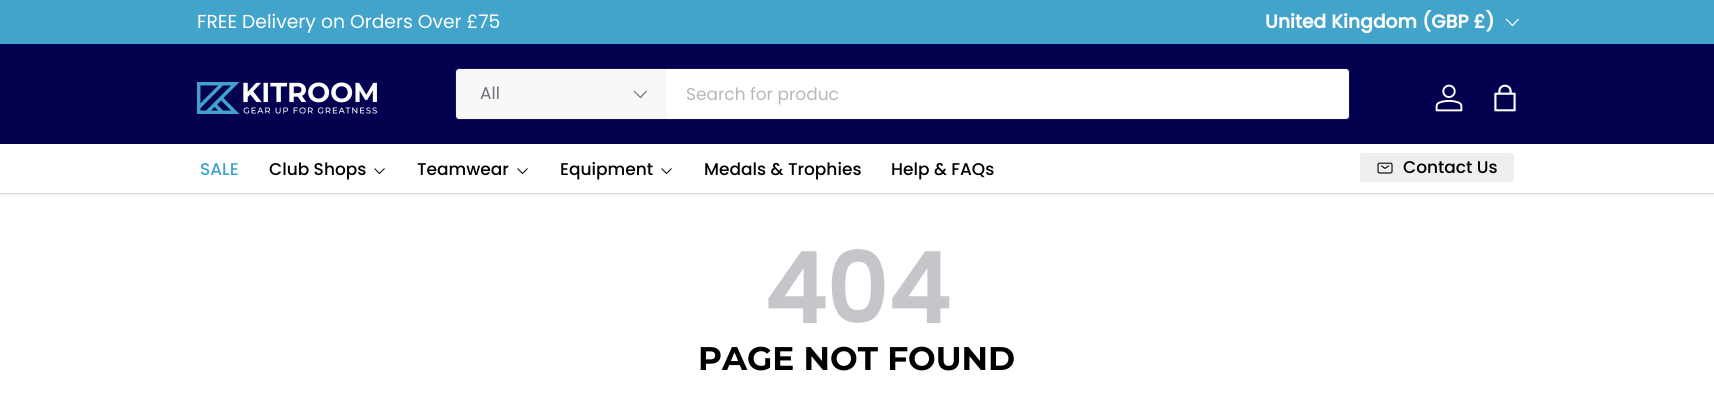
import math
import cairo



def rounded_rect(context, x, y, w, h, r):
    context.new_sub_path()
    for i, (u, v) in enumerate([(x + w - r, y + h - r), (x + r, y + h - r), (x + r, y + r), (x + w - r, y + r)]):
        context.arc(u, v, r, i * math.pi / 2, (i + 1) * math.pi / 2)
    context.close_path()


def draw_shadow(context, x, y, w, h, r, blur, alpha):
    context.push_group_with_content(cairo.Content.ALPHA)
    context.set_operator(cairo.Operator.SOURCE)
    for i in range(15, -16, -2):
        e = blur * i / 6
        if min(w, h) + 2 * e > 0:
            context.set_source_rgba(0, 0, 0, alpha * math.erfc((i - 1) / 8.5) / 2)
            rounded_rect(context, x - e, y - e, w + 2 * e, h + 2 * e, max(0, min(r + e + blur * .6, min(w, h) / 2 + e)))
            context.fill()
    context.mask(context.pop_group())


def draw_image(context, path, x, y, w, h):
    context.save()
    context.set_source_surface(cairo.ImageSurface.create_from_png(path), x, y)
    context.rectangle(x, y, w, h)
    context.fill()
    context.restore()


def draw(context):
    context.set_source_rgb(1, 1, 1)
    context.paint()
    context.set_source_rgb(0, 0, 0)
    draw_shadow(context, -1, 43, 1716, 152, 0, 1.5, 0.08)
    context.set_source_rgb(66 / 255, 164 / 255, 203 / 255)
    context.rectangle(0, 0, 1714, 44)
    context.fill()
    context.new_path()
    context.move_to(1518.5, 19)
    context.line_to(1512.5, 25.5)
    context.line_to(1506, 19)
    context.set_source_rgb(1, 1, 1)
    context.set_line_width(1.2)
    context.stroke()
    context.set_source_rgb(3 / 255, 0, 79 / 255)
    context.rectangle(0, 44, 1714, 100)
    context.fill()
    draw_image(context, "images/1.png", 197, 82, 180, 32)
    rounded_rect(context, 455.5, 68.5, 894, 51, 2.5)
    context.set_source_rgb(19 / 255, 17 / 255, 85 / 255)
    context.set_line_width(1)
    context.stroke()
    context.set_source_rgb(1, 1, 1)
    rounded_rect(context, 456, 69, 893, 50, 3)
    context.fill()
    context.set_source_rgba(107 / 255, 113 / 255, 119 / 255, 0.05)
    context.rectangle(456, 69, 209, 50)
    context.fill()
    context.set_source_rgb(241 / 255, 241 / 255, 242 / 255)
    context.rectangle(665, 69, 1, 50)
    context.fill()
    context.new_path()
    context.move_to(646.5, 91)
    context.line_to(640.5, 97.5)
    context.line_to(634, 91)
    context.set_source_rgb(107 / 255, 113 / 255, 119 / 255)
    context.set_line_width(1.2)
    context.stroke()
    draw_image(context, "images/2.png", 1435, 84, 28, 28)
    draw_image(context, "images/3.png", 1494, 84, 22, 28)
    context.set_source_rgb(1, 1, 1)
    context.rectangle(0, 144, 1714, 49)
    context.fill()
    context.new_path()
    context.move_to(384.5, 168.5)
    context.line_to(379.5, 173.5)
    context.line_to(374.5, 168.5)
    context.set_source_rgb(0, 0, 0)
    context.set_line_width(1)
    context.stroke()
    context.new_path()
    context.move_to(527.5, 168.5)
    context.line_to(522.5, 173.5)
    context.line_to(517.5, 168.5)
    context.stroke()
    context.new_path()
    context.move_to(671.5, 168.5)
    context.line_to(666.5, 173.5)
    context.line_to(661.5, 168.5)
    context.stroke()
    context.save()
    rounded_rect(context, 1360, 153, 154, 29, 3)
    context.clip()
    gradient = cairo.LinearGradient(1067, 113, 1503, 222)
    gradient.add_color_stop_rgba(0.6, 211 / 255, 211 / 255, 211 / 255, 1)
    gradient.add_color_stop_rgba(0.6, 239 / 255, 239 / 255, 239 / 255, 1)
    gradient.add_color_stop_rgba(1, 239 / 255, 239 / 255, 239 / 255, 1)
    context.set_source(gradient)
    context.rectangle(1360, 154, 153, 27)
    context.fill()
    context.restore()
    rounded_rect(context, 1360.5, 153.5, 153, 28, 2.5)
    context.set_source_rgb(239 / 255, 239 / 255, 239 / 255)
    context.stroke()
    draw_image(context, "images/4.png", 1377, 162, 16, 12)
    context.set_source_rgb(217 / 255, 217 / 255, 217 / 255)
    context.rectangle(0, 193, 1714, 1)
    context.fill()
    context.select_font_face("Poppins")
    context.set_font_size(18.75)
    context.set_source_rgb(1, 1, 1)
    context.move_to(197, 28)
    context.show_text("FREE Delivery on Orders Over £75")
    context.select_font_face("Poppins", cairo.FontSlant.NORMAL, cairo.FontWeight.BOLD)
    context.move_to(1265, 28)
    context.show_text("United Kingdom (GBP £)")
    context.select_font_face("Poppins")
    context.set_font_size(17)
    context.set_source_rgb(107 / 255, 113 / 255, 119 / 255)
    context.move_to(480, 99)
    context.show_text("All")
    context.set_source_rgb(181 / 255, 184 / 255, 187 / 255)
    context.move_to(686, 100)
    context.show_text("Search for produc")
    context.select_font_face("Poppins Medium")
    context.set_source_rgb(66 / 255, 164 / 255, 203 / 255)
    context.move_to(200, 175)
    context.show_text("SALE")
    context.set_source_rgb(0, 0, 0)
    context.move_to(269, 175)
    context.show_text("Club Shops")
    context.move_to(417, 175)
    context.show_text("Teamwear")
    context.move_to(560, 175)
    context.show_text("Equipment")
    context.move_to(704, 175)
    context.show_text("Medals & Trophies")
    context.move_to(891, 175)
    context.show_text("Help & FAQs")
    context.move_to(1403, 173)
    context.show_text("Contact Us")
    context.select_font_face("Poppins", cairo.FontSlant.NORMAL, cairo.FontWeight.BOLD)
    context.set_font_size(96)
    context.set_source_rgb(196 / 255, 198 / 255, 201 / 255)
    context.move_to(764, 323)
    context.show_text("404")
    context.select_font_face("Montserrat", cairo.FontSlant.NORMAL, cairo.FontWeight.BOLD)
    context.set_font_size(32.75)
    context.set_source_rgb(0, 0, 0)
    context.move_to(698, 370)
    context.show_text("PAGE NOT FOUND")


surface = cairo.ImageSurface(cairo.Format.RGB24, 1714, 399)
context = cairo.Context(surface)
options = cairo.FontOptions()
options.set_hint_metrics(cairo.HintMetrics.OFF)
options.set_hint_style(cairo.HintStyle.NONE)
context.set_font_options(options)
context.set_miter_limit(4)
draw(context)
surface.write_to_png("out.png")
